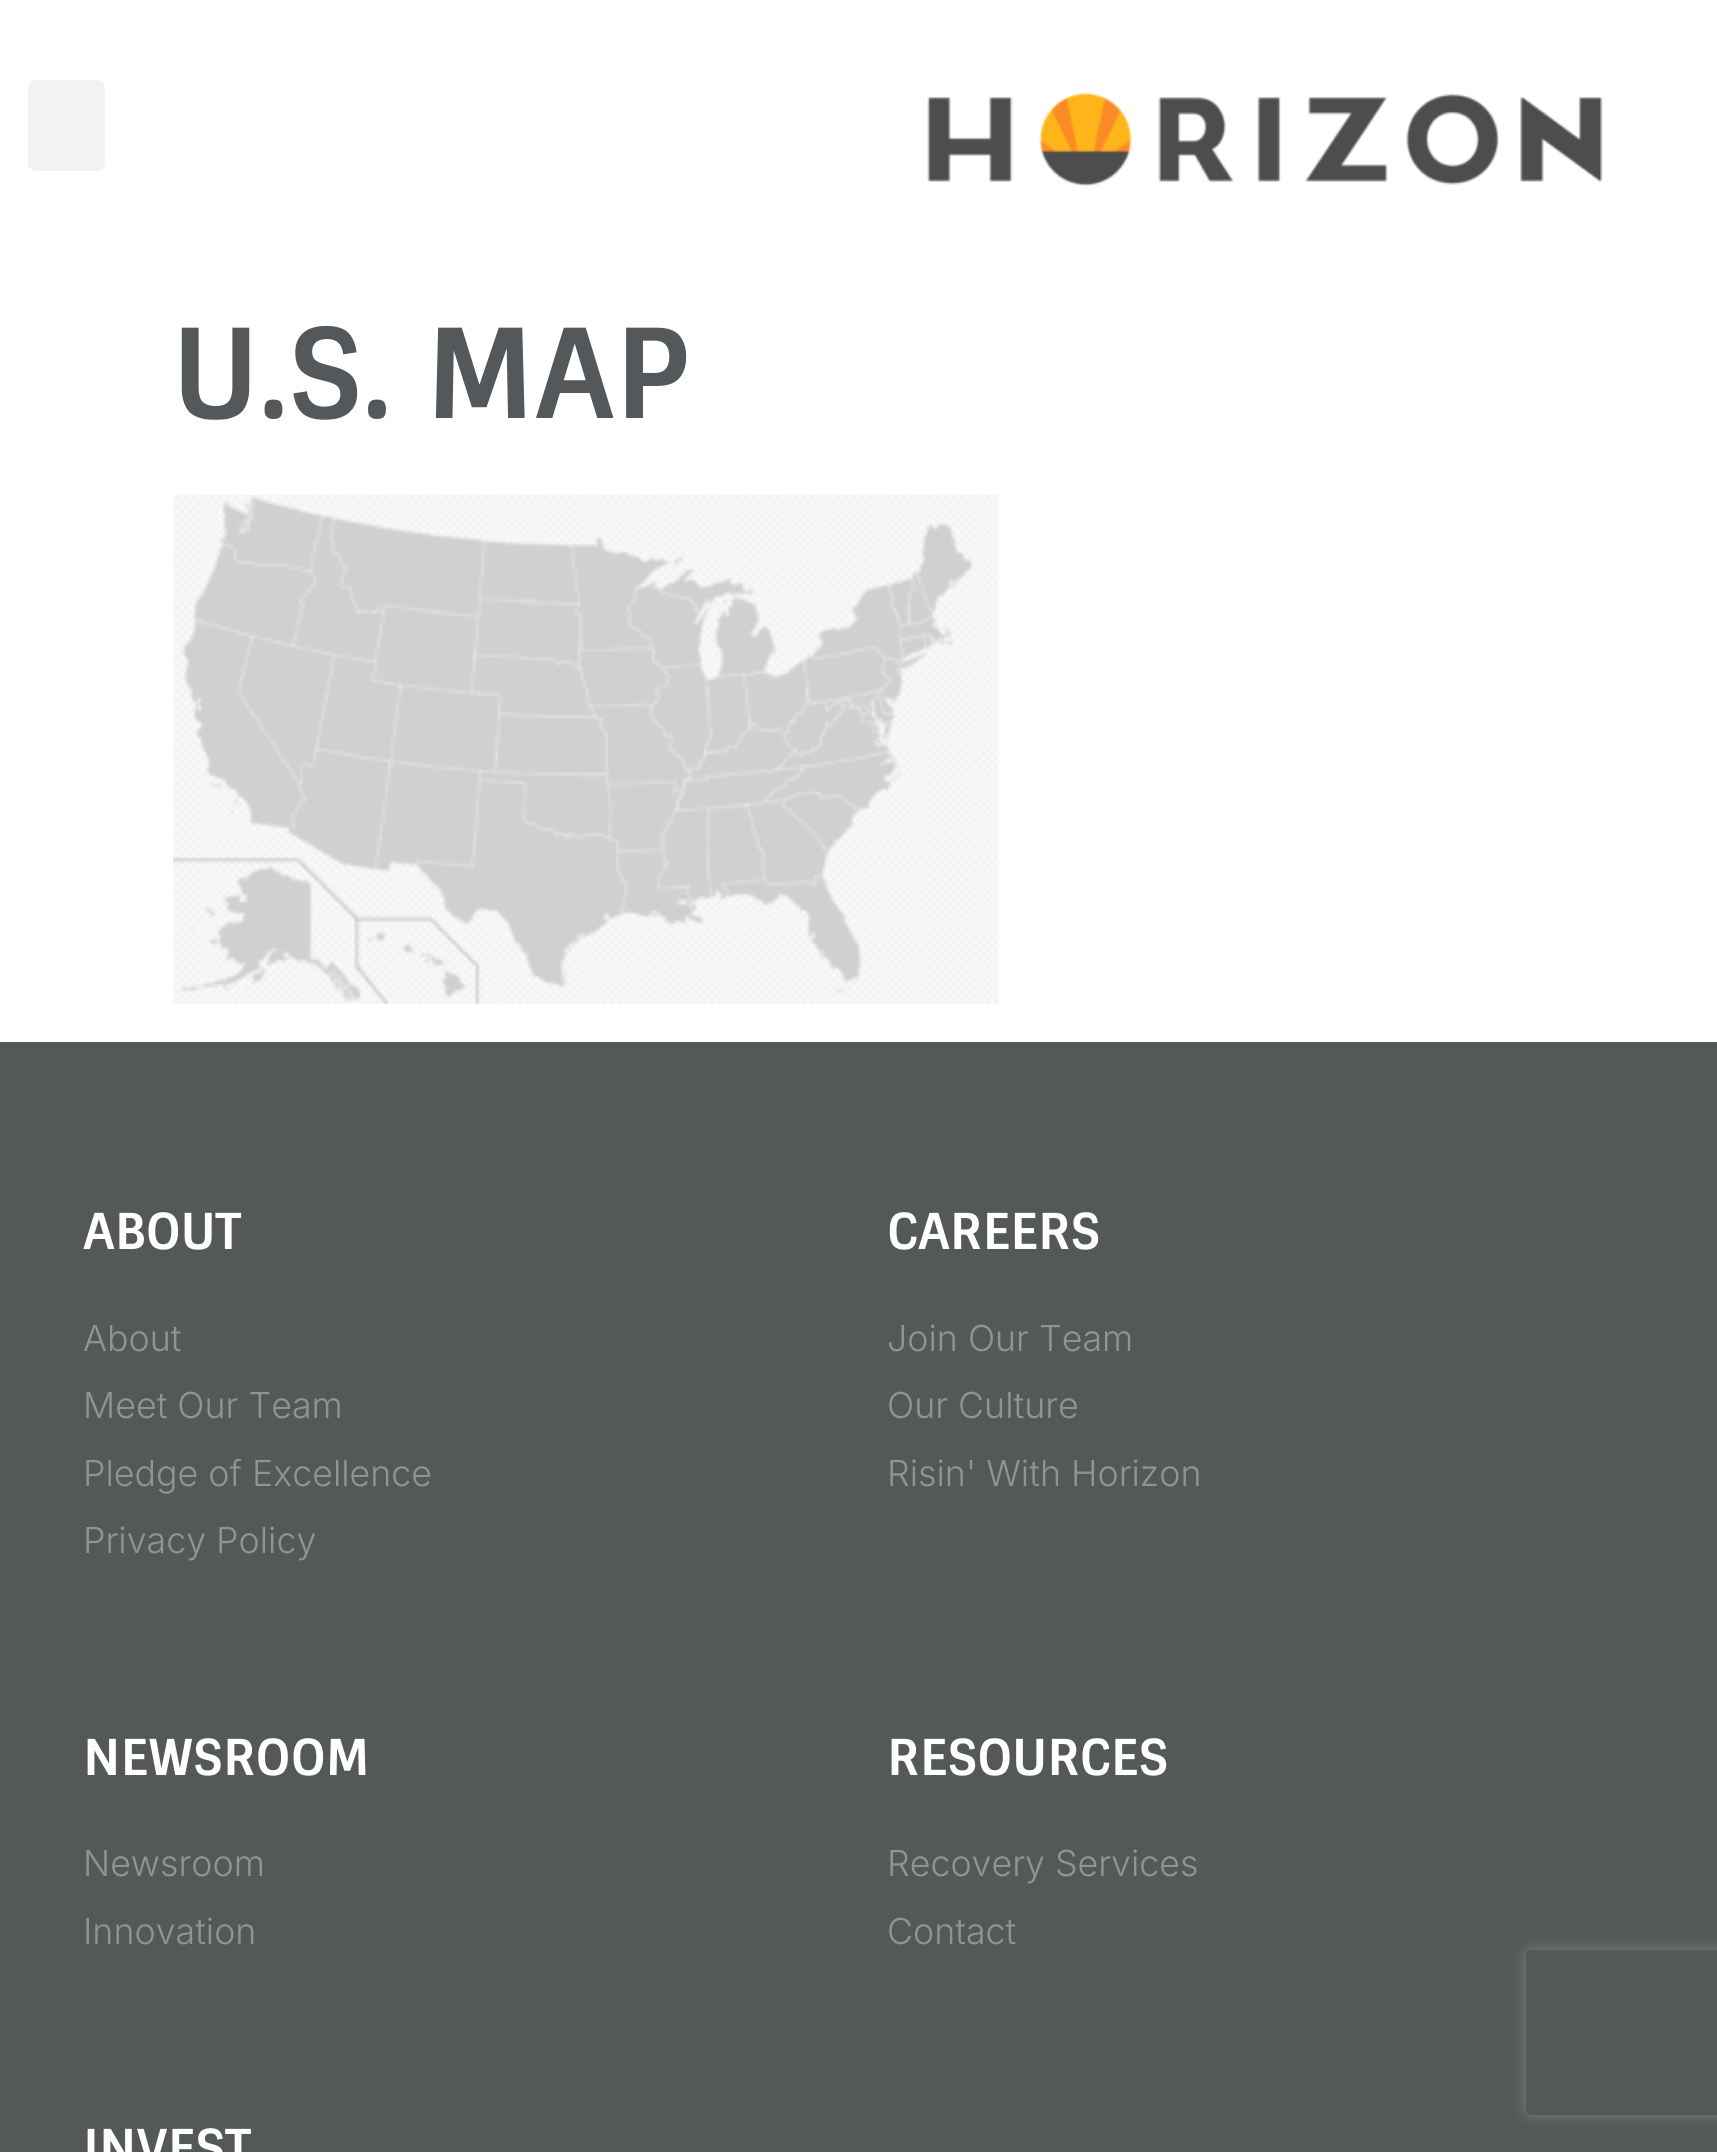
import math
import cairo



def rounded_rect(context, x, y, w, h, r):
    context.new_sub_path()
    for i, (u, v) in enumerate([(x + w - r, y + h - r), (x + r, y + h - r), (x + r, y + r), (x + w - r, y + r)]):
        context.arc(u, v, r, i * math.pi / 2, (i + 1) * math.pi / 2)
    context.close_path()


def draw_shadow(context, x, y, w, h, r, blur, alpha):
    context.push_group_with_content(cairo.Content.ALPHA)
    context.set_operator(cairo.Operator.SOURCE)
    for i in range(15, -16, -2):
        e = blur * i / 6
        if min(w, h) + 2 * e > 0:
            context.set_source_rgba(0, 0, 0, alpha * math.erfc((i - 1) / 8.5) / 2)
            rounded_rect(context, x - e, y - e, w + 2 * e, h + 2 * e, max(0, min(r + e + blur * .6, min(w, h) / 2 + e)))
            context.fill()
    context.mask(context.pop_group())


def draw_image(context, path, x, y, w, h):
    context.save()
    context.set_source_surface(cairo.ImageSurface.create_from_png(path), x, y)
    context.rectangle(x, y, w, h)
    context.fill()
    context.restore()


def draw(context):
    context.set_source_rgb(1, 1, 1)
    context.paint()
    context.set_source_rgb(242 / 255, 242 / 255, 242 / 255)
    rounded_rect(context, 28, 80, 77, 91, 8)
    context.fill()
    draw_image(context, "images/1.png", 927, 92, 676, 95)
    draw_image(context, "images/2.png", 173, 495, 826, 509)
    context.set_source_rgb(84 / 255, 88 / 255, 86 / 255)
    context.rectangle(0, 1042, 1717, 1110)
    context.fill()
    context.save()
    context.set_fill_rule(cairo.FillRule.EVEN_ODD)
    context.new_path()
    context.move_to(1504, 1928)
    context.line_to(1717, 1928)
    context.line_to(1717, 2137)
    context.line_to(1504, 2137)
    context.close_path()
    context.move_to(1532, 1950)
    context.line_to(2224, 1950)
    context.curve_to(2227.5, 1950, 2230, 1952.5, 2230, 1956)
    context.line_to(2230, 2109)
    context.curve_to(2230, 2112.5, 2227.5, 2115, 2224, 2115)
    context.line_to(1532, 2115)
    context.curve_to(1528.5, 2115, 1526, 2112.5, 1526, 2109)
    context.line_to(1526, 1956)
    context.curve_to(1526, 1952.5, 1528.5, 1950, 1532, 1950)
    context.close_path()
    context.clip()
    context.set_source_rgb(128 / 255, 128 / 255, 128 / 255)
    draw_shadow(context, 1526, 1950, 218, 165, 6, 7, 1)
    context.restore()
    context.select_font_face("Sintony", cairo.FontSlant.NORMAL, cairo.FontWeight.BOLD)
    context.set_font_size(123.75)
    context.set_source_rgb(84 / 255, 88 / 255, 90 / 255)
    context.move_to(172, 418)
    context.show_text("U.S. MAP")
    context.set_font_size(49.5)
    context.set_source_rgb(1, 1, 1)
    context.move_to(83, 1249)
    context.show_text("ABOUT")
    context.select_font_face("Inter Light")
    context.set_font_size(35.75)
    context.set_source_rgb(146 / 255, 148 / 255, 147 / 255)
    context.move_to(83, 1351)
    context.show_text("About")
    context.move_to(83, 1418)
    context.show_text("Meet Our Team")
    context.move_to(83, 1486)
    context.show_text("Pledge of Excellence")
    context.move_to(83, 1553)
    context.show_text("Privacy Policy")
    context.select_font_face("Sintony", cairo.FontSlant.NORMAL, cairo.FontWeight.BOLD)
    context.set_font_size(49.5)
    context.set_source_rgb(1, 1, 1)
    context.move_to(887, 1249)
    context.show_text("CAREERS")
    context.select_font_face("Inter Light")
    context.set_font_size(35.75)
    context.set_source_rgb(146 / 255, 148 / 255, 147 / 255)
    context.move_to(887, 1351)
    context.show_text("Join Our Team")
    context.move_to(887, 1418)
    context.show_text("Our Culture")
    context.move_to(887, 1486)
    context.show_text("Risin' With Horizon")
    context.select_font_face("Sintony", cairo.FontSlant.NORMAL, cairo.FontWeight.BOLD)
    context.set_font_size(49.5)
    context.set_source_rgb(1, 1, 1)
    context.move_to(83, 1775)
    context.show_text("NEWSROOM")
    context.select_font_face("Inter Light")
    context.set_font_size(35.75)
    context.set_source_rgb(146 / 255, 148 / 255, 147 / 255)
    context.move_to(83, 1876)
    context.show_text("Newsroom")
    context.move_to(83, 1944)
    context.show_text("Innovation")
    context.select_font_face("Sintony", cairo.FontSlant.NORMAL, cairo.FontWeight.BOLD)
    context.set_font_size(49.5)
    context.set_source_rgb(1, 1, 1)
    context.move_to(887, 1775)
    context.show_text("RESOURCES")
    context.select_font_face("Inter Light")
    context.set_font_size(35.75)
    context.set_source_rgb(146 / 255, 148 / 255, 147 / 255)
    context.move_to(887, 1876)
    context.show_text("Recovery Services")
    context.move_to(887, 1944)
    context.show_text("Contact")
    context.select_font_face("Sintony", cairo.FontSlant.NORMAL, cairo.FontWeight.BOLD)
    context.set_font_size(49.5)
    context.set_source_rgb(1, 1, 1)
    context.move_to(83, 2165)
    context.show_text("INVEST")


surface = cairo.ImageSurface(cairo.Format.RGB24, 1717, 2152)
context = cairo.Context(surface)
options = cairo.FontOptions()
options.set_hint_metrics(cairo.HintMetrics.OFF)
options.set_hint_style(cairo.HintStyle.NONE)
context.set_font_options(options)
context.set_miter_limit(4)
draw(context)
surface.write_to_png("out.png")
